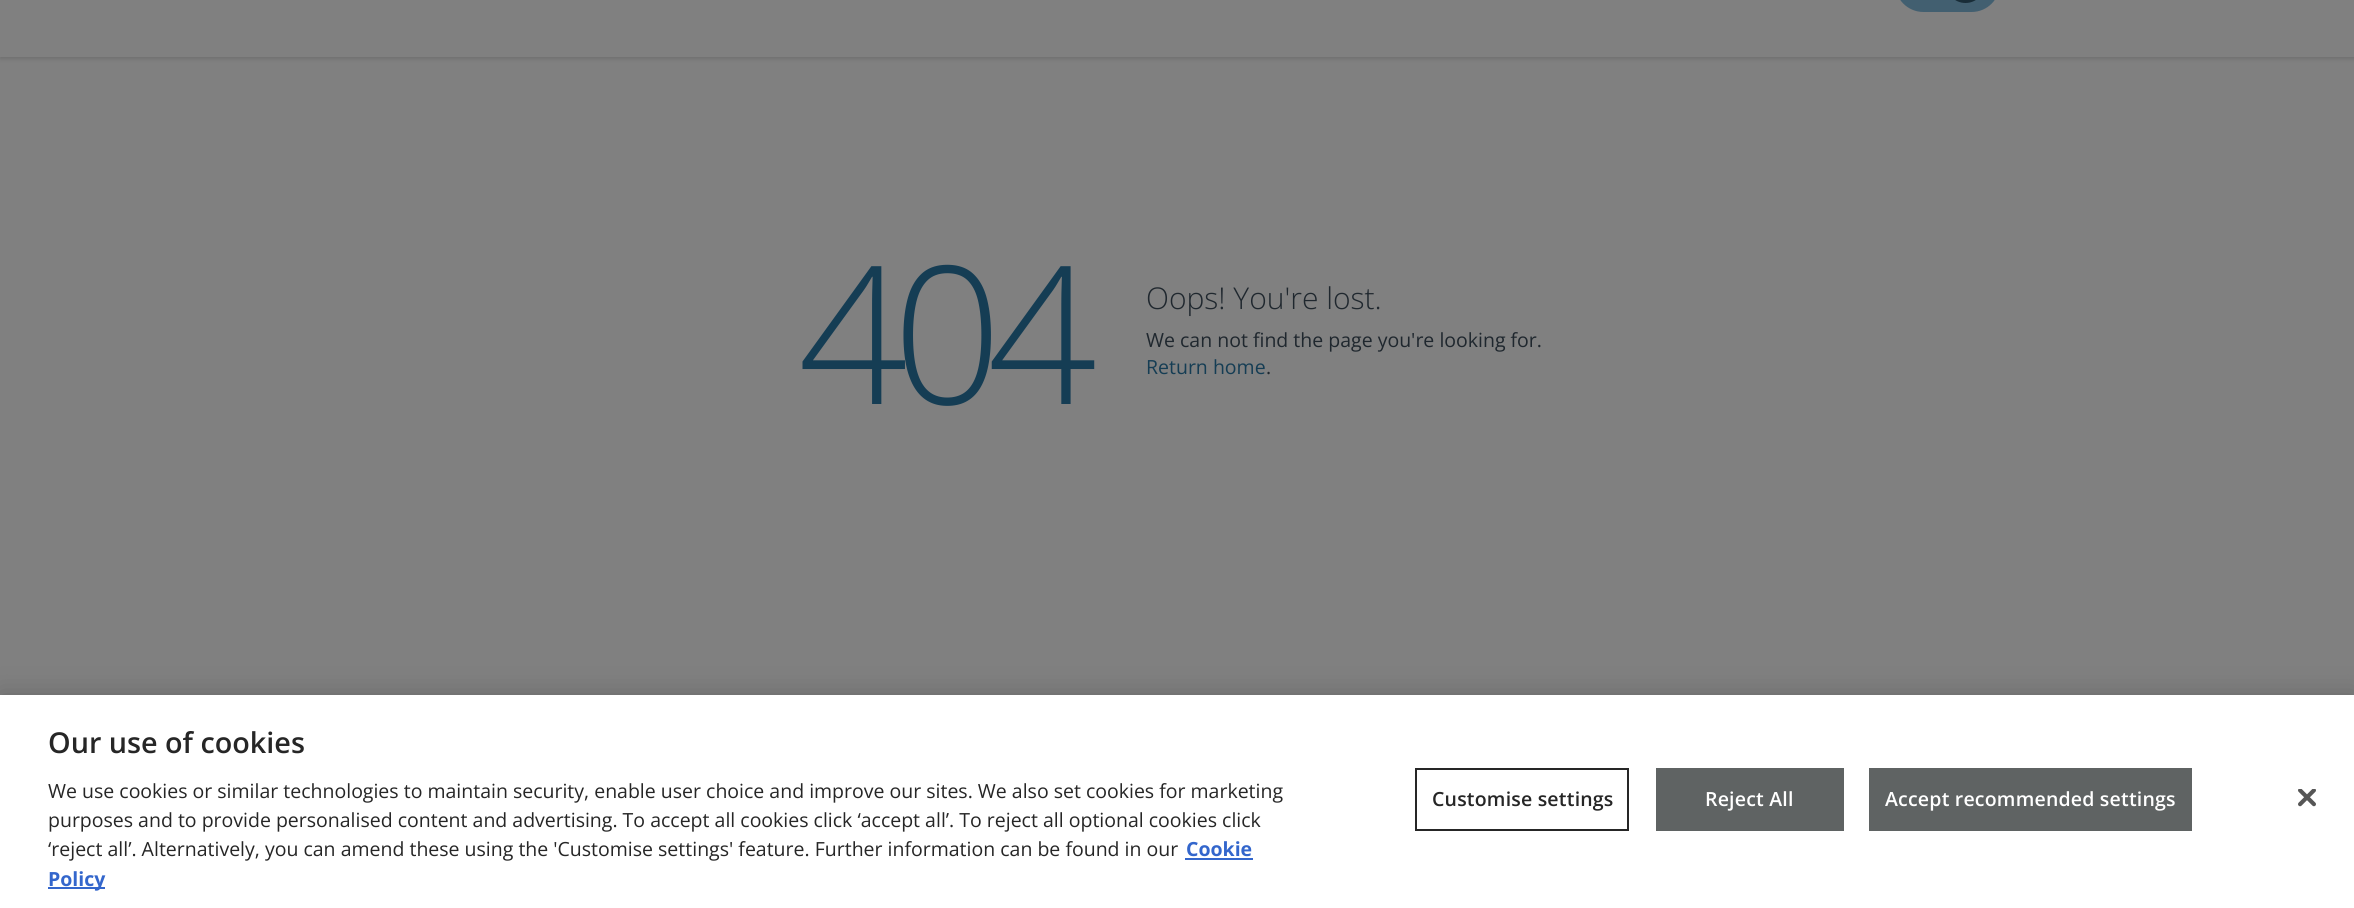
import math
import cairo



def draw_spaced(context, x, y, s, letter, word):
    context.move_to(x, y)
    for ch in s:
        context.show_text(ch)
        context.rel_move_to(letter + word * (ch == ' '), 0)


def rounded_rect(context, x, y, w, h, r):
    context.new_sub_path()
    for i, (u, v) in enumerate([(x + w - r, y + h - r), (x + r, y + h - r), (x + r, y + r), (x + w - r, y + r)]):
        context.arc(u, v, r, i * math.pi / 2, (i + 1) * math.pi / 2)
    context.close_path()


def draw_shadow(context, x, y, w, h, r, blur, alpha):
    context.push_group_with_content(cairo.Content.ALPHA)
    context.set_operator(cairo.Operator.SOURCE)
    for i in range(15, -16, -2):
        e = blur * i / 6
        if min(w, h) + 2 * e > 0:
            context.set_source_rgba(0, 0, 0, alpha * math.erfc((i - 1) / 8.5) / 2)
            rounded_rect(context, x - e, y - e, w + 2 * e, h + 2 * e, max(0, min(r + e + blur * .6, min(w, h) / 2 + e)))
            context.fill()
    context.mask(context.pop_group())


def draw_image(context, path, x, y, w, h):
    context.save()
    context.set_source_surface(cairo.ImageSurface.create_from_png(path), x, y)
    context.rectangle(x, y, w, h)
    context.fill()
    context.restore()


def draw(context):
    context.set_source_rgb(128 / 255, 128 / 255, 128 / 255)
    context.paint()
    context.save()
    context.rectangle(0, 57, 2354, 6)
    context.clip()
    context.set_source_rgb(111 / 255, 111 / 255, 111 / 255)
    draw_shadow(context, 0, -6, 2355, 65, 0, 2, 1)
    context.restore()
    context.set_source_rgb(66 / 255, 95 / 255, 112 / 255)
    rounded_rect(context, 1896, -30, 103, 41, 27.5)
    context.fill_preserve()
    context.stroke()
    context.set_source_rgb(25 / 255, 45 / 255, 56 / 255)
    rounded_rect(context, 1946, -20, 39, 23, 19.5)
    context.fill()
    context.set_source_rgb(0, 0, 0)
    draw_shadow(context, 0, 695, 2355, 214, 0, 13.5, 0.2)
    context.set_source_rgb(1, 1, 1)
    context.rectangle(0, 695, 2354, 213)
    context.fill()
    context.set_source_rgb(51 / 255, 102 / 255, 204 / 255)
    context.rectangle(1185, 858, 68, 2)
    context.fill()
    context.rectangle(48, 887, 57, 2)
    context.fill()
    context.rectangle(1416, 769, 212, 61)
    context.set_source_rgb(38 / 255, 38 / 255, 38 / 255)
    context.stroke()
    context.set_source_rgb(95 / 255, 99 / 255, 99 / 255)
    context.rectangle(1656, 768, 188, 63)
    context.fill()
    context.rectangle(1869, 768, 323, 63)
    context.fill()
    draw_image(context, "images/1.png", 2298, 789, 18, 18)
    context.select_font_face("Open Sans Light")
    context.set_font_size(192)
    context.set_source_rgb(21 / 255, 61 / 255, 84 / 255)
    draw_spaced(context, 798, 404, "404", -15, 0)
    context.set_font_size(30)
    context.set_source_rgb(31 / 255, 39 / 255, 46 / 255)
    context.move_to(1146, 309)
    context.show_text("Oops! You're lost.")
    context.select_font_face("Open Sans")
    context.set_font_size(19.5)
    context.move_to(1146, 347)
    context.show_text("We can not find the page you're looking for.")
    context.set_source_rgb(21 / 255, 61 / 255, 84 / 255)
    context.move_to(1146, 374)
    context.show_text("Return home")
    context.set_source_rgb(31 / 255, 39 / 255, 46 / 255)
    context.move_to(1266, 374)
    context.show_text(".")
    context.select_font_face("Open Sans SemiBold")
    context.set_font_size(28.75)
    context.set_source_rgb(38 / 255, 38 / 255, 38 / 255)
    context.move_to(48, 753)
    context.show_text("Our use of cookies")
    context.select_font_face("Open Sans")
    context.set_font_size(19.5)
    context.move_to(48, 798)
    context.show_text("We use cookies or similar technologies to maintain security, enable user choice and improve our sites. We also set cookies for marketing")
    context.move_to(48, 827)
    context.show_text("purposes and to provide personalised content and advertising. To accept all cookies click ‘accept all’. To reject all optional cookies click")
    context.move_to(48, 856)
    context.show_text("‘reject all’. Alternatively, you can amend these using the 'Customise settings' feature. Further information can be found in our")
    context.select_font_face("Open Sans", cairo.FontSlant.NORMAL, cairo.FontWeight.BOLD)
    context.set_source_rgb(51 / 255, 102 / 255, 204 / 255)
    context.move_to(1186, 856)
    context.show_text("Cookie")
    context.move_to(48, 886)
    context.show_text("Policy")
    context.select_font_face("Open Sans SemiBold")
    context.set_source_rgb(38 / 255, 38 / 255, 38 / 255)
    draw_spaced(context, 1432, 806, "Customise settings", 0.2, 0)
    context.set_source_rgb(1, 1, 1)
    draw_spaced(context, 1705, 806, "Reject All", 0.2, 0)
    draw_spaced(context, 1885, 806, "Accept recommended settings", 0.2, 0)


surface = cairo.ImageSurface(cairo.Format.RGB24, 2354, 908)
context = cairo.Context(surface)
options = cairo.FontOptions()
options.set_hint_metrics(cairo.HintMetrics.OFF)
options.set_hint_style(cairo.HintStyle.NONE)
context.set_font_options(options)
context.set_miter_limit(4)
draw(context)
surface.write_to_png("out.png")
